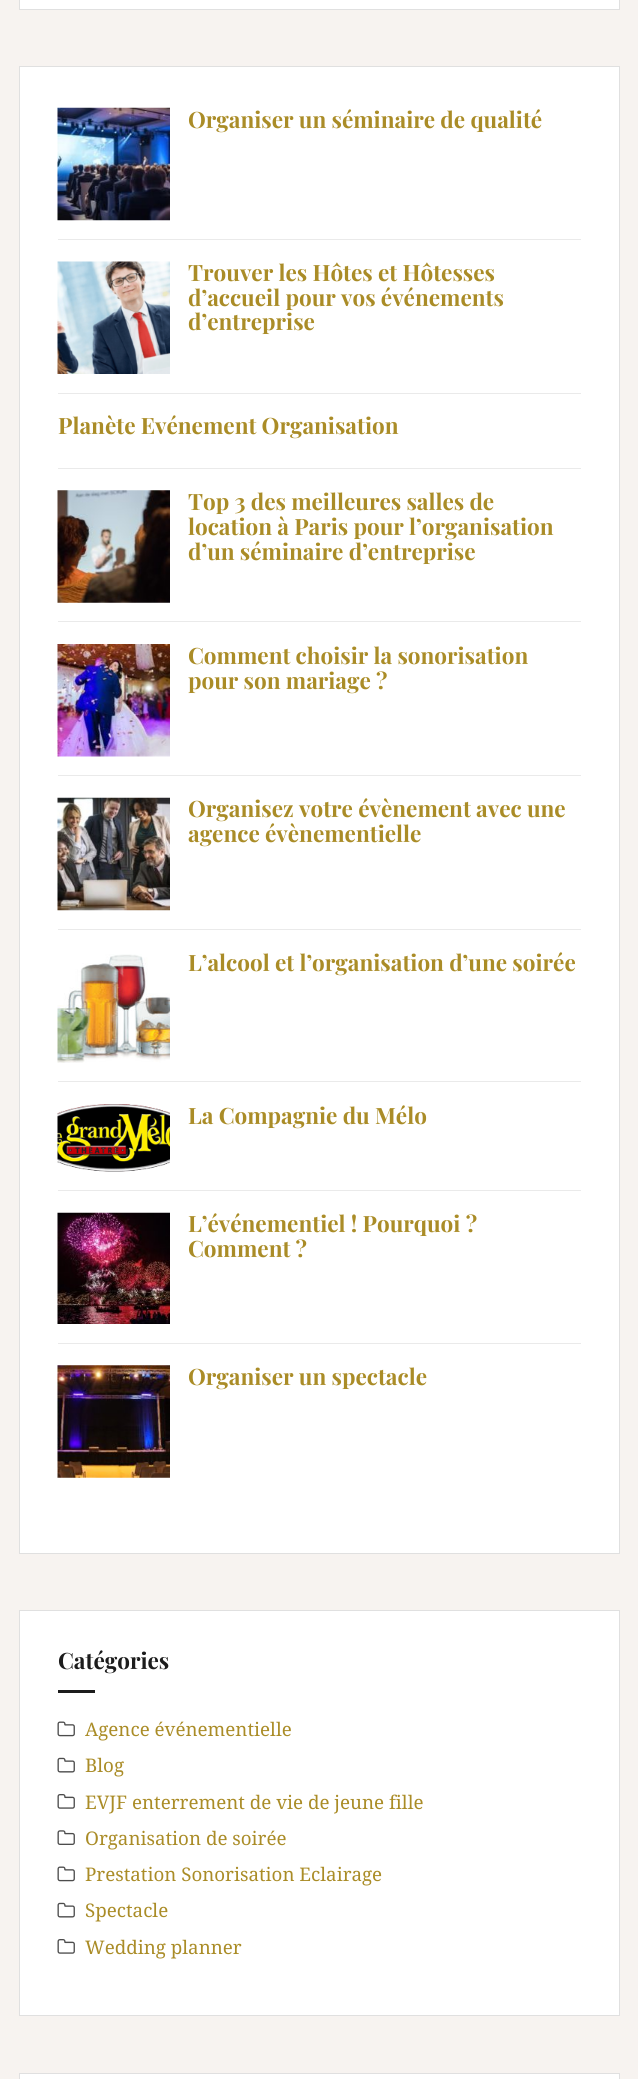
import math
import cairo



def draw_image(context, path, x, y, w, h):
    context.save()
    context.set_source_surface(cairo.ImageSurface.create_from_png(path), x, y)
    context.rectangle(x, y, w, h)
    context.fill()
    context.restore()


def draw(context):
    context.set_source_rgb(247 / 255, 243 / 255, 240 / 255)
    context.paint()
    context.set_source_rgb(1, 1, 1)
    context.rectangle(19.5, -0.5, 600, 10)
    context.fill_preserve()
    context.set_source_rgb(224 / 255, 224 / 255, 224 / 255)
    context.set_line_width(1)
    context.stroke()
    context.set_source_rgb(1, 1, 1)
    context.rectangle(19.5, 66.5, 600, 1487)
    context.fill_preserve()
    context.set_source_rgb(224 / 255, 224 / 255, 224 / 255)
    context.stroke()
    context.set_source_rgb(234 / 255, 234 / 255, 234 / 255)
    context.rectangle(58, 239, 523, 1)
    context.fill()
    draw_image(context, "images/1.png", 57, 107, 113, 114)
    context.rectangle(58, 393, 523, 1)
    context.fill()
    draw_image(context, "images/2.png", 57, 261, 113, 113)
    context.rectangle(58, 468, 523, 1)
    context.fill()
    context.rectangle(58, 621, 523, 1)
    context.fill()
    draw_image(context, "images/3.png", 57, 490, 113, 113)
    context.rectangle(58, 775, 523, 1)
    context.fill()
    draw_image(context, "images/4.png", 57, 644, 113, 113)
    context.rectangle(58, 929, 523, 1)
    context.fill()
    draw_image(context, "images/5.png", 57, 797, 113, 114)
    context.rectangle(58, 1081, 523, 1)
    context.fill()
    draw_image(context, "images/6.png", 57, 954, 113, 109)
    context.rectangle(58, 1190, 523, 1)
    context.fill()
    draw_image(context, "images/7.png", 57, 1104, 113, 68)
    context.rectangle(58, 1343, 523, 1)
    context.fill()
    draw_image(context, "images/8.png", 57, 1212, 113, 112)
    draw_image(context, "images/9.png", 57, 1365, 113, 113)
    context.set_source_rgb(1, 1, 1)
    context.rectangle(19.5, 1610.5, 600, 405)
    context.fill_preserve()
    context.set_source_rgb(224 / 255, 224 / 255, 224 / 255)
    context.stroke()
    context.set_source_rgb(28 / 255, 28 / 255, 28 / 255)
    context.rectangle(58, 1690, 37, 3)
    context.fill()
    draw_image(context, "images/10.png", 57, 1721, 18, 16)
    draw_image(context, "images/11.png", 57, 1757, 18, 16)
    draw_image(context, "images/12.png", 57, 1794, 18, 15)
    draw_image(context, "images/13.png", 57, 1830, 18, 15)
    draw_image(context, "images/10.png", 57, 1866, 18, 16)
    draw_image(context, "images/11.png", 57, 1902, 18, 16)
    draw_image(context, "images/12.png", 57, 1939, 18, 15)
    context.set_source_rgb(1, 1, 1)
    context.rectangle(19.5, 2073.5, 600, 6)
    context.fill_preserve()
    context.set_source_rgb(224 / 255, 224 / 255, 224 / 255)
    context.stroke()
    context.select_font_face("Playfair Display", cairo.FontSlant.NORMAL, cairo.FontWeight.BOLD)
    context.set_font_size(22.5)
    context.set_source_rgb(170 / 255, 140 / 255, 39 / 255)
    context.move_to(188, 128)
    context.show_text("Organiser un séminaire de qualité")
    context.move_to(188, 281)
    context.show_text("Trouver les Hôtes et Hôtesses")
    context.move_to(188, 306)
    context.show_text("d’accueil pour vos événements")
    context.move_to(188, 330)
    context.show_text("d’entreprise")
    context.move_to(58, 434)
    context.show_text("Planète Evénement Organisation")
    context.move_to(188, 510)
    context.show_text("Top 3 des meilleures salles de")
    context.move_to(188, 535)
    context.show_text("location à Paris pour l’organisation")
    context.move_to(188, 560)
    context.show_text("d’un séminaire d’entreprise")
    context.move_to(188, 664)
    context.show_text("Comment choisir la sonorisation")
    context.move_to(188, 689)
    context.show_text("pour son mariage ?")
    context.move_to(188, 817)
    context.show_text("Organisez votre évènement avec une")
    context.move_to(188, 842)
    context.show_text("agence évènementielle")
    context.move_to(188, 971)
    context.show_text("L’alcool et l’organisation d’une soirée")
    context.move_to(188, 1124)
    context.show_text("La Compagnie du Mélo")
    context.move_to(188, 1232)
    context.show_text("L’événementiel ! Pourquoi ?")
    context.move_to(188, 1257)
    context.show_text("Comment ?")
    context.move_to(188, 1385)
    context.show_text("Organiser un spectacle")
    context.set_source_rgb(28 / 255, 28 / 255, 28 / 255)
    context.move_to(58, 1669)
    context.show_text("Catégories")
    context.select_font_face("Noto Serif")
    context.set_font_size(18.75)
    context.set_source_rgb(170 / 255, 140 / 255, 39 / 255)
    context.move_to(85, 1736)
    context.show_text("Agence événementielle")
    context.move_to(85, 1772)
    context.show_text("Blog")
    context.move_to(85, 1809)
    context.show_text("EVJF enterrement de vie de jeune fille")
    context.move_to(85, 1845)
    context.show_text("Organisation de soirée")
    context.move_to(85, 1881)
    context.show_text("Prestation Sonorisation Eclairage")
    context.move_to(85, 1917)
    context.show_text("Spectacle")
    context.move_to(85, 1954)
    context.show_text("Wedding planner")


surface = cairo.ImageSurface(cairo.Format.RGB24, 638, 2079)
context = cairo.Context(surface)
options = cairo.FontOptions()
options.set_hint_metrics(cairo.HintMetrics.OFF)
options.set_hint_style(cairo.HintStyle.NONE)
context.set_font_options(options)
context.set_miter_limit(4)
draw(context)
surface.write_to_png("out.png")
